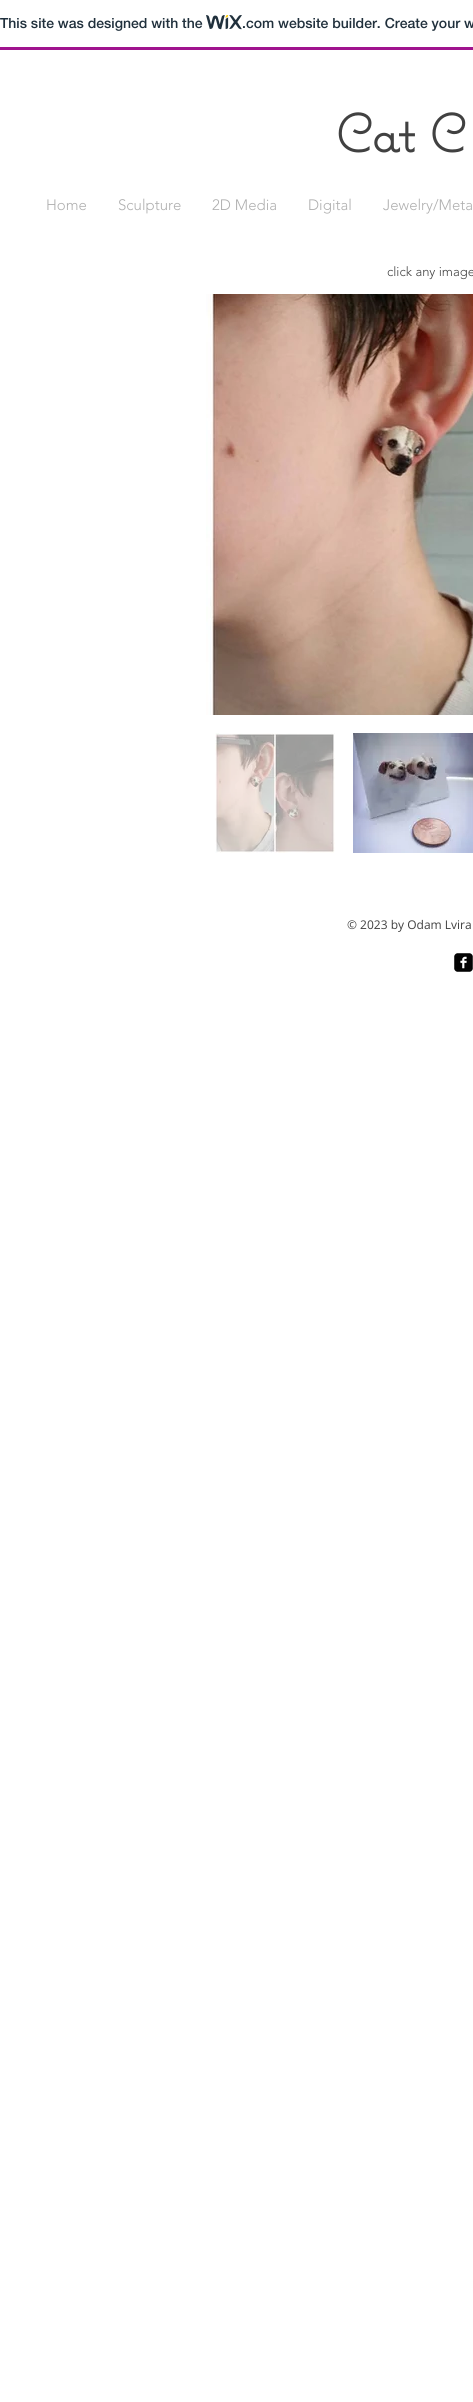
import math
import cairo



def draw_image(context, path, x, y, w, h):
    context.save()
    context.set_source_surface(cairo.ImageSurface.create_from_png(path), x, y)
    context.rectangle(x, y, w, h)
    context.fill()
    context.restore()


def draw(context):
    context.set_source_rgb(1, 1, 1)
    context.paint()
    context.set_source_rgb(160 / 255, 19 / 255, 142 / 255)
    context.rectangle(0, 47, 473, 3)
    context.fill()
    draw_image(context, "images/1.png", 206, 15, 36, 15)
    draw_image(context, "images/2.png", 206, 294, 267, 421)
    draw_image(context, "images/3.png", 215, 733, 120, 120)
    draw_image(context, "images/4.png", 353, 733, 120, 120)
    draw_image(context, "images/5.png", 454, 953, 19, 19)
    context.select_font_face("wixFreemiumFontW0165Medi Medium")
    context.set_font_size(14)
    context.set_source_rgb(32 / 255, 48 / 255, 60 / 255)
    context.move_to(0, 28)
    context.show_text("This site was designed with the")
    context.move_to(242, 28)
    context.show_text(".com website builder. Create your w")
    context.select_font_face("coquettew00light", cairo.FontSlant.NORMAL, cairo.FontWeight.BOLD)
    context.set_font_size(53)
    context.set_source_rgb(65 / 255, 65 / 255, 65 / 255)
    context.move_to(335, 152)
    context.show_text("Cat C")
    context.select_font_face("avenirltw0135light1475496 Light")
    context.set_font_size(15)
    context.set_source_rgb(175 / 255, 175 / 255, 175 / 255)
    context.move_to(46, 210)
    context.show_text("Home")
    context.move_to(118, 210)
    context.show_text("Sculpture")
    context.move_to(212, 210)
    context.show_text("2D Media")
    context.move_to(308, 210)
    context.show_text("Digital")
    context.move_to(383, 210)
    context.show_text("Jewelry/Meta")
    context.set_font_size(13)
    context.set_source_rgb(65 / 255, 65 / 255, 65 / 255)
    context.move_to(387, 276)
    context.show_text("click any image")
    context.select_font_face("Open Sans")
    context.set_font_size(12)
    context.move_to(347, 929)
    context.show_text("© 2023 by Odam Lvira")


surface = cairo.ImageSurface(cairo.Format.RGB24, 473, 2402)
context = cairo.Context(surface)
options = cairo.FontOptions()
options.set_hint_metrics(cairo.HintMetrics.OFF)
options.set_hint_style(cairo.HintStyle.NONE)
context.set_font_options(options)
context.set_miter_limit(4)
draw(context)
surface.write_to_png("out.png")
